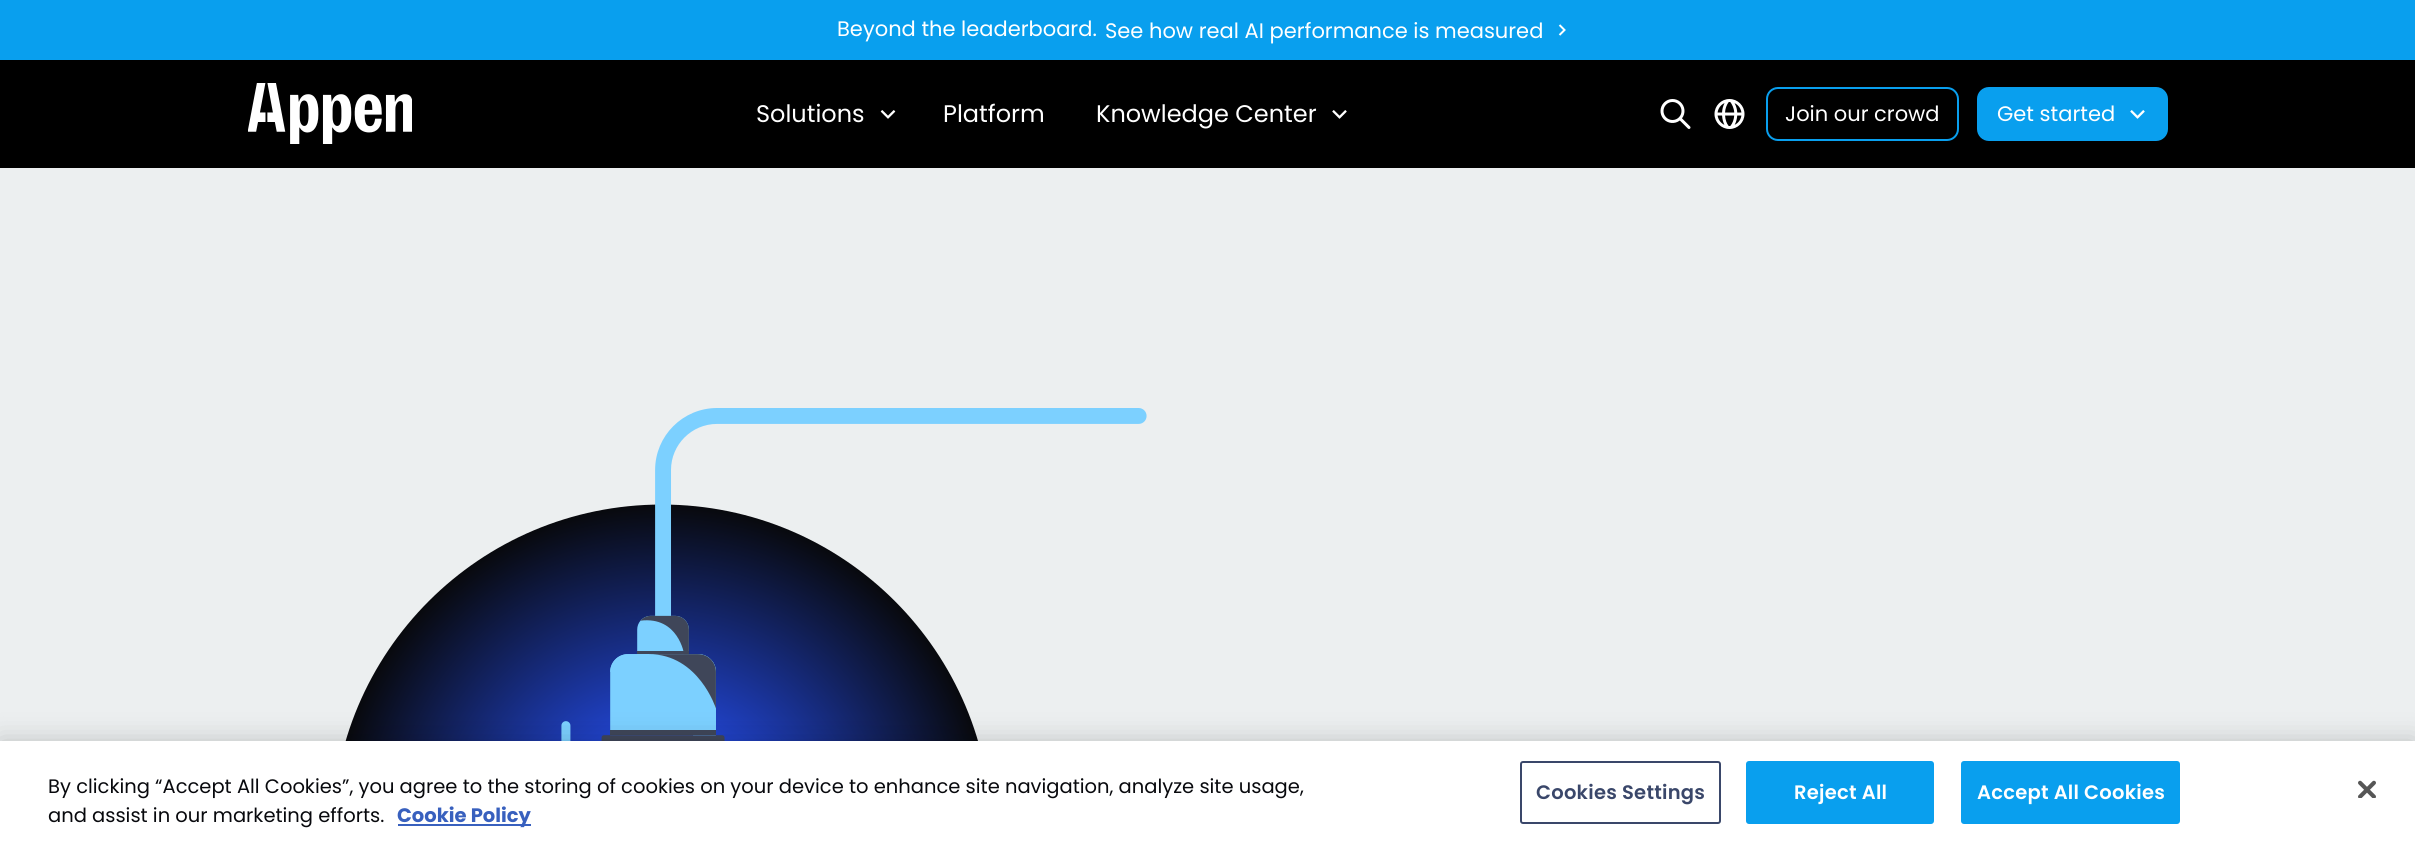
import math
import cairo



def draw_spaced(context, x, y, s, letter, word):
    context.move_to(x, y)
    for ch in s:
        context.show_text(ch)
        context.rel_move_to(letter + word * (ch == ' '), 0)


def rounded_rect(context, x, y, w, h, r):
    context.new_sub_path()
    for i, (u, v) in enumerate([(x + w - r, y + h - r), (x + r, y + h - r), (x + r, y + r), (x + w - r, y + r)]):
        context.arc(u, v, r, i * math.pi / 2, (i + 1) * math.pi / 2)
    context.close_path()


def draw_shadow(context, x, y, w, h, r, blur, alpha):
    context.push_group_with_content(cairo.Content.ALPHA)
    context.set_operator(cairo.Operator.SOURCE)
    for i in range(15, -16, -2):
        e = blur * i / 6
        if min(w, h) + 2 * e > 0:
            context.set_source_rgba(0, 0, 0, alpha * math.erfc((i - 1) / 8.5) / 2)
            rounded_rect(context, x - e, y - e, w + 2 * e, h + 2 * e, max(0, min(r + e + blur * .6, min(w, h) / 2 + e)))
            context.fill()
    context.mask(context.pop_group())


def draw_image(context, path, x, y, w, h):
    context.save()
    context.set_source_surface(cairo.ImageSurface.create_from_png(path), x, y)
    context.rectangle(x, y, w, h)
    context.fill()
    context.restore()


def draw(context):
    context.set_source_rgb(9 / 255, 159 / 255, 238 / 255)
    context.paint()
    draw_image(context, "images/1.png", 1558, 24, 8, 12)
    context.set_source_rgb(0, 0, 0)
    context.rectangle(0, 60, 2415, 108)
    context.fill()
    draw_image(context, "images/2.png", 248, 83, 164, 61)
    draw_image(context, "images/3.png", 880, 110, 16, 9)
    draw_image(context, "images/4.png", 1332, 110, 15, 9)
    draw_image(context, "images/5.png", 1660, 99, 31, 30)
    draw_image(context, "images/6.png", 1714, 99, 31, 30)
    rounded_rect(context, 1767, 88, 191, 52, 11)
    context.set_source_rgb(9 / 255, 159 / 255, 238 / 255)
    context.stroke()
    rounded_rect(context, 1978, 88, 189, 52, 11)
    context.fill_preserve()
    context.stroke()
    draw_image(context, "images/7.png", 2130, 110, 15, 9)
    context.set_source_rgb(236 / 255, 239 / 255, 240 / 255)
    context.rectangle(0, 168, 2415, 573)
    context.fill()
    draw_image(context, "images/8.png", 345, 408, 802, 333)
    context.set_source_rgb(0, 0, 0)
    draw_shadow(context, 0, 741, 2415, 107, 0, 13.5, 0.2)
    context.set_source_rgb(1, 1, 1)
    context.rectangle(0, 741, 2415, 106)
    context.fill()
    context.set_source_rgb(56 / 255, 96 / 255, 190 / 255)
    context.rectangle(398, 824, 133, 2)
    context.fill()
    rounded_rect(context, 1521, 762, 199, 61, 2)
    context.set_source_rgb(58 / 255, 71 / 255, 106 / 255)
    context.stroke()
    context.set_source_rgb(9 / 255, 159 / 255, 238 / 255)
    rounded_rect(context, 1747, 762, 186, 61, 2)
    context.fill_preserve()
    context.stroke()
    rounded_rect(context, 1962, 762, 217, 61, 2)
    context.fill_preserve()
    context.stroke()
    draw_image(context, "images/9.png", 2358, 780, 18, 18)
    context.select_font_face("Poppins")
    context.set_font_size(21)
    context.set_source_rgb(1, 1, 1)
    context.move_to(837, 36)
    context.show_text("Beyond the leaderboard.")
    context.move_to(1105, 38)
    context.show_text("See how real AI performance is measured")
    context.set_font_size(24)
    context.move_to(756, 122)
    context.show_text("Solutions")
    context.move_to(943, 122)
    context.show_text("Platform")
    context.move_to(1096, 122)
    context.show_text("Knowledge Center")
    context.set_font_size(21)
    context.move_to(1785, 121)
    context.show_text("Join our crowd")
    context.move_to(1997, 121)
    context.show_text("Get started")
    context.set_font_size(19.5)
    context.set_source_rgb(8 / 255, 9 / 255, 13 / 255)
    context.move_to(48, 793)
    context.show_text("By clicking “Accept All Cookies”, you agree to the storing of cookies on your device to enhance site navigation, analyze site usage,")
    context.move_to(48, 822)
    context.show_text("and assist in our marketing efforts.")
    context.select_font_face("Poppins", cairo.FontSlant.NORMAL, cairo.FontWeight.BOLD)
    context.set_source_rgb(56 / 255, 96 / 255, 190 / 255)
    context.move_to(397, 822)
    context.show_text("Cookie Policy")
    context.select_font_face("Poppins SemiBold")
    context.set_source_rgb(58 / 255, 71 / 255, 106 / 255)
    draw_spaced(context, 1536, 799, "Cookies Settings", 0.25, 0)
    context.set_source_rgb(1, 1, 1)
    draw_spaced(context, 1794, 799, "Reject All", 0.25, 0)
    draw_spaced(context, 1977, 799, "Accept All Cookies", 0.25, 0)


surface = cairo.ImageSurface(cairo.Format.RGB24, 2415, 847)
context = cairo.Context(surface)
options = cairo.FontOptions()
options.set_hint_metrics(cairo.HintMetrics.OFF)
options.set_hint_style(cairo.HintStyle.NONE)
context.set_font_options(options)
context.set_miter_limit(4)
draw(context)
surface.write_to_png("out.png")
